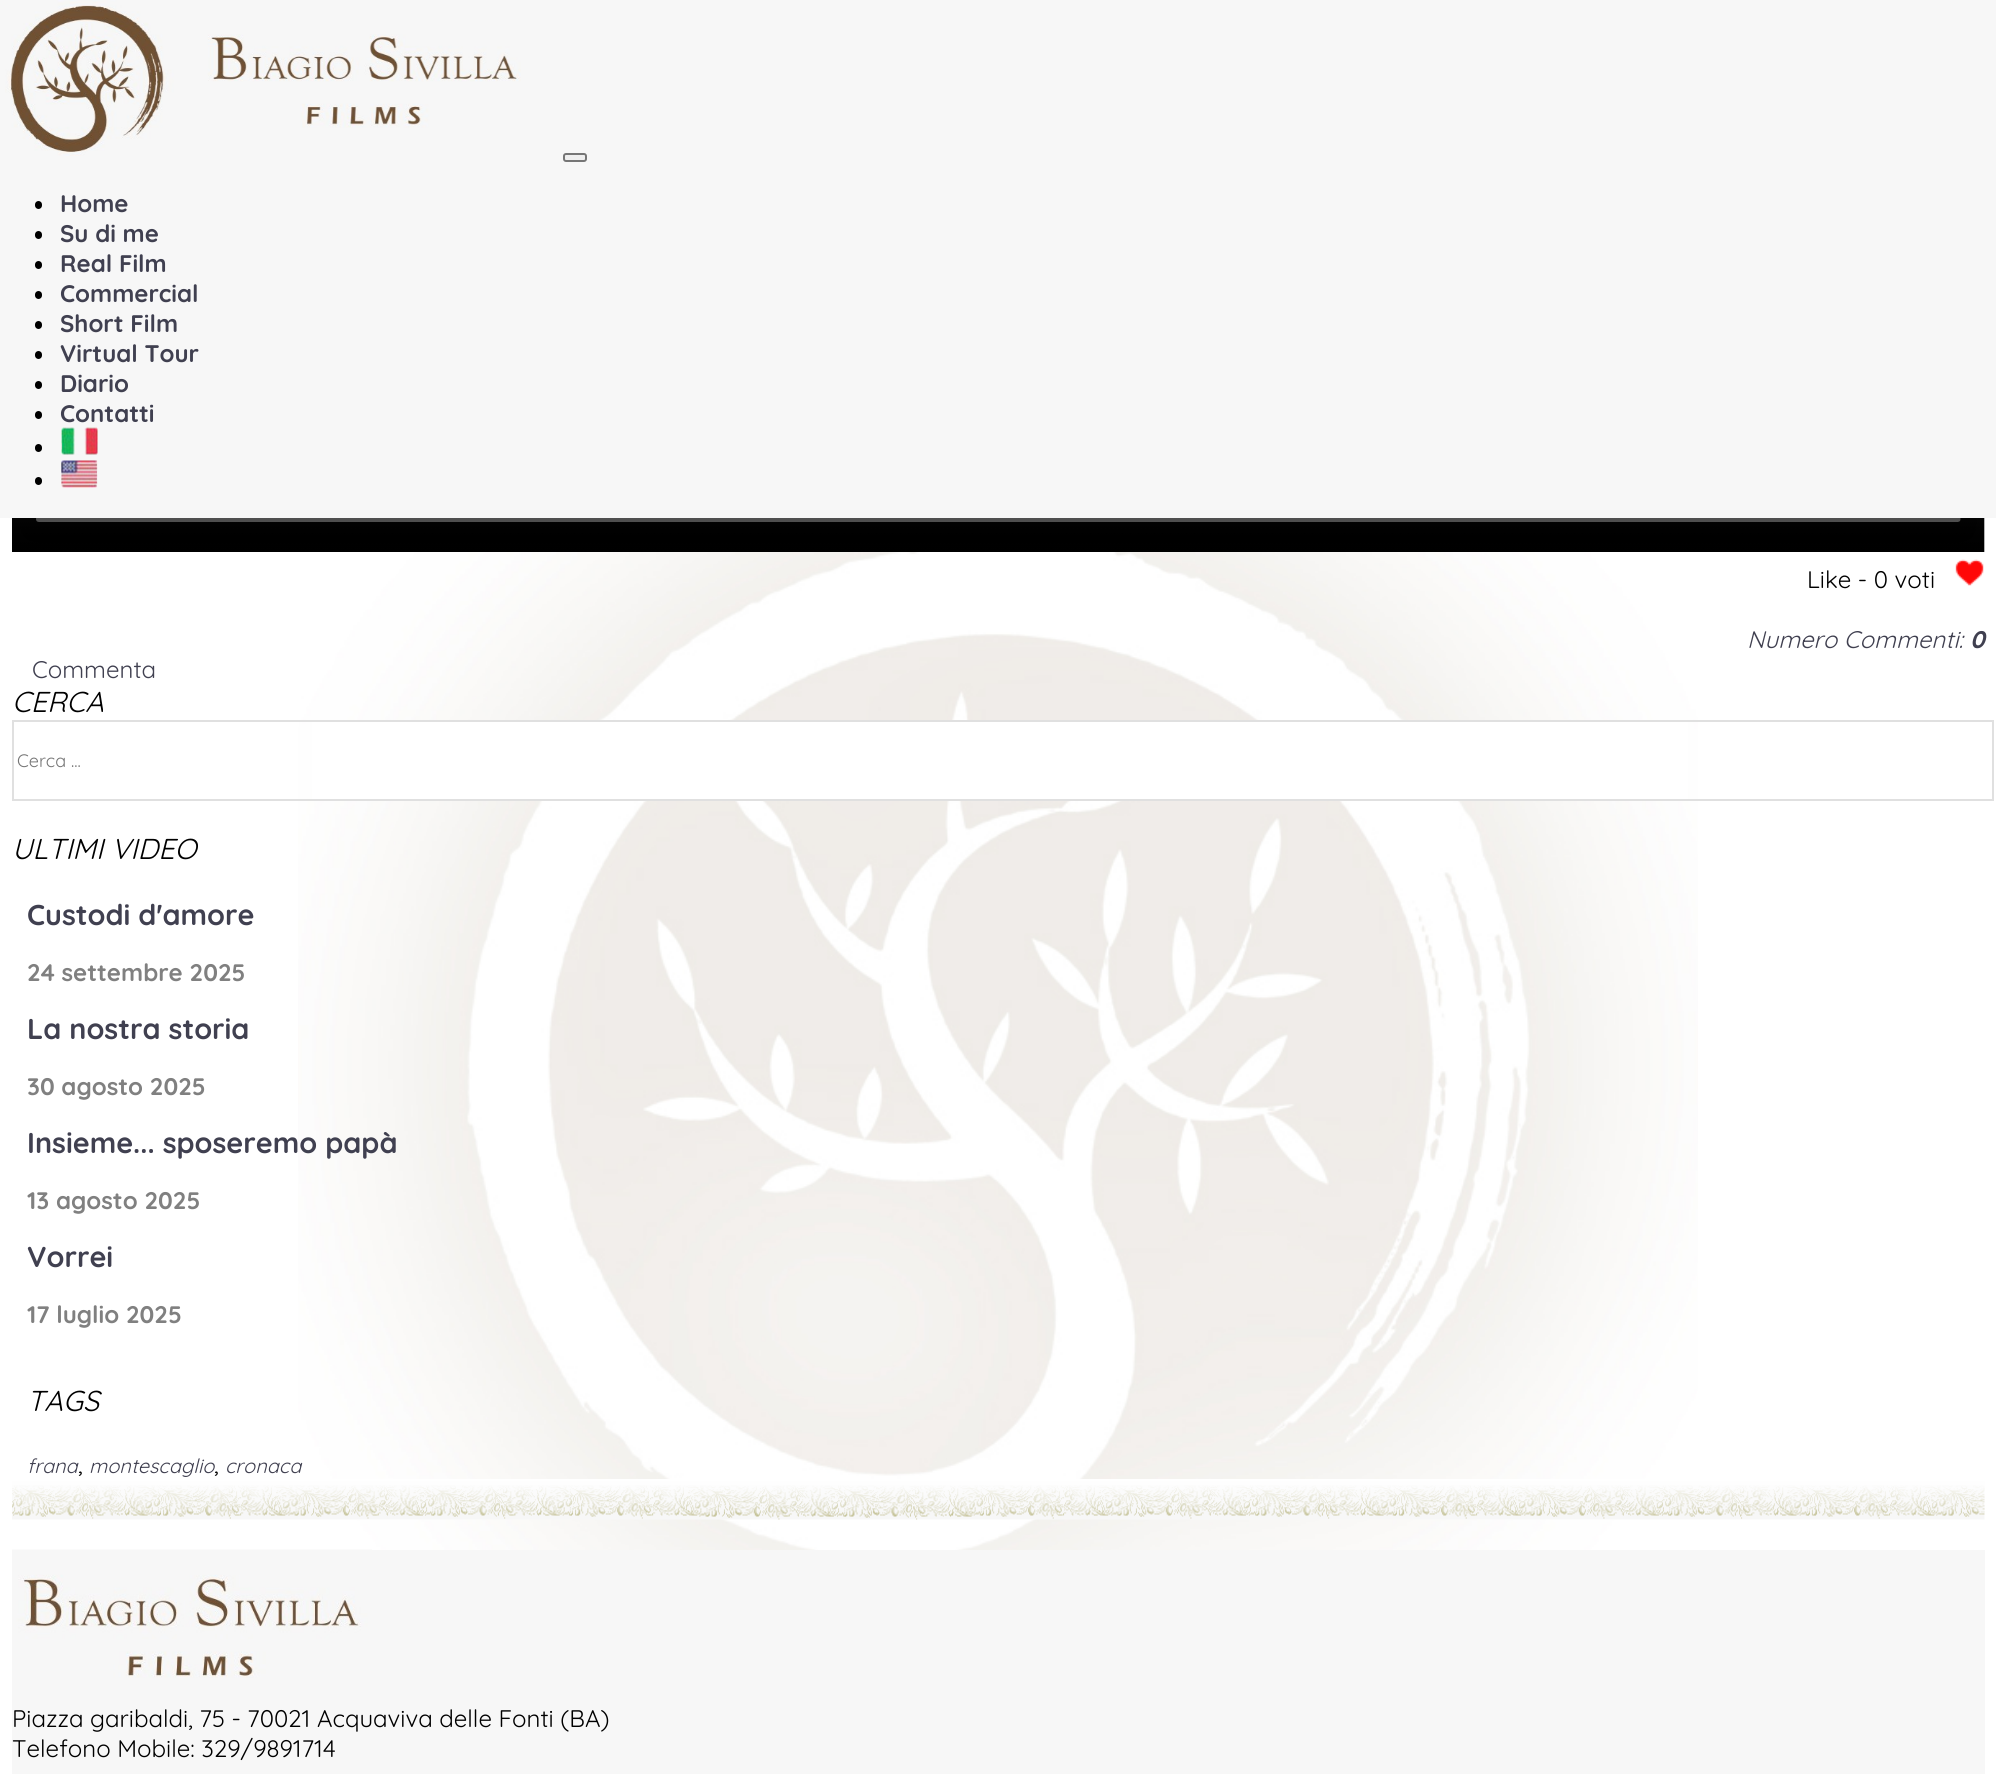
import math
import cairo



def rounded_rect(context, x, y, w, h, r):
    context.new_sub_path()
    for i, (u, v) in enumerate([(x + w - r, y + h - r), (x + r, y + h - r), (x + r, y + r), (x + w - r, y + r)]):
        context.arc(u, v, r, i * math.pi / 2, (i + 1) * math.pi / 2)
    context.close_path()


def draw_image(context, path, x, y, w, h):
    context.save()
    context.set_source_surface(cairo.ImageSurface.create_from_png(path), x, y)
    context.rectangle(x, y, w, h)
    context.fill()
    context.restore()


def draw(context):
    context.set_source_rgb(1, 1, 1)
    context.paint()
    draw_image(context, "images/1.png", 298, 552, 1400, 998)
    context.set_source_rgb(247 / 255, 247 / 255, 247 / 255)
    context.rectangle(0, 0, 1996, 518)
    context.fill()
    draw_image(context, "images/2.png", 5, 0, 516, 156)
    context.set_source_rgb(239 / 255, 239 / 255, 239 / 255)
    rounded_rect(context, 564, 154, 22, 7, 2)
    context.fill_preserve()
    context.set_source_rgb(118 / 255, 118 / 255, 118 / 255)
    context.stroke()
    context.set_source_rgb(0, 0, 0)
    rounded_rect(context, 35, 201, 7, 8, 3.5)
    context.fill()
    rounded_rect(context, 35, 231, 7, 8, 3.5)
    context.fill()
    rounded_rect(context, 35, 261, 7, 8, 3.5)
    context.fill()
    rounded_rect(context, 35, 291, 7, 8, 3.5)
    context.fill()
    rounded_rect(context, 35, 321, 7, 8, 3.5)
    context.fill()
    rounded_rect(context, 35, 351, 7, 8, 3.5)
    context.fill()
    rounded_rect(context, 35, 381, 7, 8, 3.5)
    context.fill()
    rounded_rect(context, 35, 411, 7, 8, 3.5)
    context.fill()
    rounded_rect(context, 35, 444, 7, 8, 3.5)
    context.fill()
    draw_image(context, "images/3.png", 61, 427, 37, 28)
    rounded_rect(context, 35, 477, 7, 8, 3.5)
    context.fill()
    draw_image(context, "images/4.png", 61, 460, 37, 28)
    draw_image(context, "images/5.png", 12, 518, 1973, 34)
    draw_image(context, "images/6.png", 1955, 559, 29, 27)
    context.set_source_rgb(1, 1, 1)
    context.rectangle(312, 722, 1376, 77)
    context.fill()
    context.rectangle(13, 721, 1980, 79)
    context.set_source_rgb(224 / 255, 224 / 255, 224 / 255)
    context.stroke()
    draw_image(context, "images/7.png", 12, 1479, 1973, 41)
    context.set_source_rgb(247 / 255, 247 / 255, 247 / 255)
    context.rectangle(12, 1550, 1973, 224)
    context.fill()
    draw_image(context, "images/8.png", 12, 1549, 360, 129)
    context.select_font_face("Quicksand", cairo.FontSlant.NORMAL, cairo.FontWeight.BOLD)
    context.set_font_size(24)
    context.set_source_rgb(64 / 255, 64 / 255, 80 / 255)
    context.move_to(60, 212)
    context.show_text("Home")
    context.move_to(60, 242)
    context.show_text("Su di me")
    context.move_to(60, 272)
    context.show_text("Real Film")
    context.move_to(60, 302)
    context.show_text("Commercial")
    context.move_to(60, 332)
    context.show_text("Short Film")
    context.move_to(60, 362)
    context.show_text("Virtual Tour")
    context.move_to(60, 392)
    context.show_text("Diario")
    context.move_to(60, 422)
    context.show_text("Contatti")
    context.select_font_face("Quicksand")
    context.set_source_rgb(0, 0, 0)
    context.move_to(1807, 588)
    context.show_text("Like - 0 voti")
    context.select_font_face("Quicksand", cairo.FontSlant.ITALIC)
    context.set_source_rgb(64 / 255, 64 / 255, 80 / 255)
    context.move_to(1747, 648)
    context.show_text("Numero Commenti:")
    context.select_font_face("Quicksand", cairo.FontSlant.ITALIC, cairo.FontWeight.BOLD)
    context.move_to(1970, 648)
    context.show_text("0")
    context.select_font_face("Quicksand")
    context.move_to(32, 678)
    context.show_text("Commenta")
    context.select_font_face("Quicksand", cairo.FontSlant.ITALIC)
    context.set_font_size(28.75)
    context.set_source_rgb(0, 0, 0)
    context.move_to(12, 712)
    context.show_text("CERCA")
    context.select_font_face("Quicksand")
    context.set_font_size(18)
    context.set_source_rgb(117 / 255, 117 / 255, 117 / 255)
    context.move_to(17, 767)
    context.show_text("Cerca ...")
    context.select_font_face("Quicksand", cairo.FontSlant.ITALIC)
    context.set_font_size(28.75)
    context.set_source_rgb(0, 0, 0)
    context.move_to(12, 859)
    context.show_text("ULTIMI VIDEO")
    context.select_font_face("Quicksand", cairo.FontSlant.NORMAL, cairo.FontWeight.BOLD)
    context.set_source_rgb(64 / 255, 64 / 255, 80 / 255)
    context.move_to(27, 925)
    context.show_text("Custodi d'amore")
    context.set_font_size(24)
    context.set_source_rgb(128 / 255, 128 / 255, 128 / 255)
    context.move_to(27, 981)
    context.show_text("24 settembre 2025")
    context.set_font_size(28.75)
    context.set_source_rgb(64 / 255, 64 / 255, 80 / 255)
    context.move_to(27, 1039)
    context.show_text("La nostra storia")
    context.set_font_size(24)
    context.set_source_rgb(128 / 255, 128 / 255, 128 / 255)
    context.move_to(27, 1095)
    context.show_text("30 agosto 2025")
    context.set_font_size(28.75)
    context.set_source_rgb(64 / 255, 64 / 255, 80 / 255)
    context.move_to(27, 1153)
    context.show_text("Insieme... sposeremo papà")
    context.set_font_size(24)
    context.set_source_rgb(128 / 255, 128 / 255, 128 / 255)
    context.move_to(27, 1209)
    context.show_text("13 agosto 2025")
    context.set_font_size(28.75)
    context.set_source_rgb(64 / 255, 64 / 255, 80 / 255)
    context.move_to(27, 1267)
    context.show_text("Vorrei")
    context.set_font_size(24)
    context.set_source_rgb(128 / 255, 128 / 255, 128 / 255)
    context.move_to(27, 1323)
    context.show_text("17 luglio 2025")
    context.select_font_face("Quicksand", cairo.FontSlant.ITALIC)
    context.set_font_size(28.75)
    context.set_source_rgb(0, 0, 0)
    context.move_to(27, 1411)
    context.show_text("TAGS")
    context.set_font_size(20)
    context.set_source_rgb(64 / 255, 64 / 255, 80 / 255)
    context.move_to(27, 1473)
    context.show_text("frana")
    context.select_font_face("Quicksand")
    context.set_font_size(24)
    context.set_source_rgb(0, 0, 0)
    context.move_to(78, 1473)
    context.show_text(",")
    context.select_font_face("Quicksand", cairo.FontSlant.ITALIC)
    context.set_font_size(20)
    context.set_source_rgb(64 / 255, 64 / 255, 80 / 255)
    context.move_to(89, 1473)
    context.show_text("montescaglio")
    context.select_font_face("Quicksand")
    context.set_font_size(24)
    context.set_source_rgb(0, 0, 0)
    context.move_to(214, 1473)
    context.show_text(",")
    context.select_font_face("Quicksand", cairo.FontSlant.ITALIC)
    context.set_font_size(20)
    context.set_source_rgb(64 / 255, 64 / 255, 80 / 255)
    context.move_to(225, 1473)
    context.show_text("cronaca")
    context.select_font_face("Quicksand")
    context.set_font_size(24)
    context.set_source_rgb(0, 0, 0)
    context.move_to(12, 1727)
    context.show_text("Piazza garibaldi, 75 - 70021 Acquaviva delle Fonti (BA)")
    context.move_to(12, 1757)
    context.show_text("Telefono Mobile: 329/9891714")


surface = cairo.ImageSurface(cairo.Format.RGB24, 1996, 1774)
context = cairo.Context(surface)
options = cairo.FontOptions()
options.set_hint_metrics(cairo.HintMetrics.OFF)
options.set_hint_style(cairo.HintStyle.NONE)
context.set_font_options(options)
context.set_miter_limit(4)
draw(context)
surface.write_to_png("out.png")
